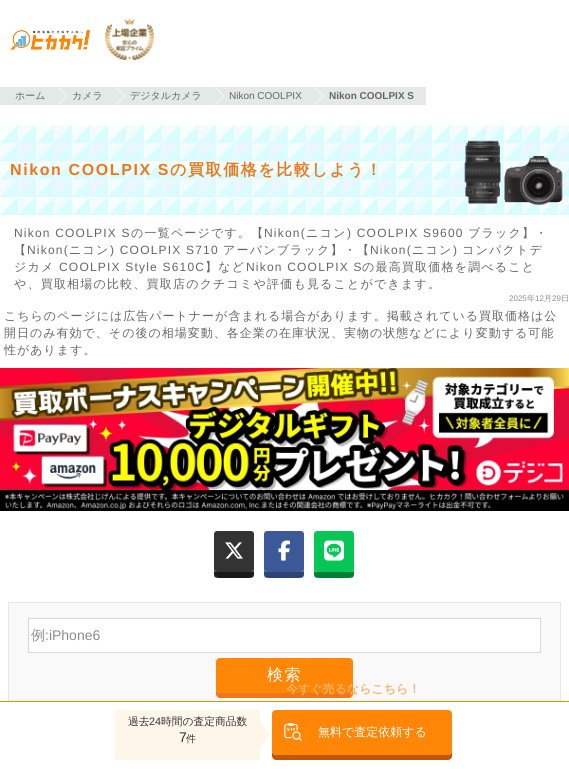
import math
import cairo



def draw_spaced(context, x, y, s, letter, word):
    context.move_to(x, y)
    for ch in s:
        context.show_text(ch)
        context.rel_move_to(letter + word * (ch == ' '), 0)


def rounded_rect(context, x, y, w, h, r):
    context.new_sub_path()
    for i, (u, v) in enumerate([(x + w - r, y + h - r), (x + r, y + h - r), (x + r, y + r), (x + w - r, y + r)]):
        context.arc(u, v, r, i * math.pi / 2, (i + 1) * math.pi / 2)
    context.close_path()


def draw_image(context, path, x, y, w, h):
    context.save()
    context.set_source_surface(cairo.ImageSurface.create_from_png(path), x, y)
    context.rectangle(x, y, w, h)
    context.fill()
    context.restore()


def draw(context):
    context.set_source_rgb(1, 1, 1)
    context.paint()
    draw_image(context, "images/1.png", 10, 30, 80, 20)
    draw_image(context, "images/2.png", 105, 18, 49, 42)
    context.set_source_rgb(228 / 255, 232 / 255, 230 / 255)
    context.rectangle(0, 87, 426, 18)
    context.fill()
    context.set_source_rgb(1, 1, 1)
    context.new_path()
    context.move_to(58, 105)
    context.line_to(58, 87)
    context.line_to(67, 96)
    context.close_path()
    context.fill()
    context.set_source_rgb(228 / 255, 232 / 255, 230 / 255)
    context.new_path()
    context.move_to(57, 105)
    context.line_to(57, 87)
    context.line_to(66, 96)
    context.close_path()
    context.fill()
    context.set_source_rgb(1, 1, 1)
    context.new_path()
    context.move_to(116, 105)
    context.line_to(116, 87)
    context.line_to(125, 96)
    context.close_path()
    context.fill()
    context.set_source_rgb(228 / 255, 232 / 255, 230 / 255)
    context.new_path()
    context.move_to(115, 105)
    context.line_to(115, 87)
    context.line_to(124, 96)
    context.close_path()
    context.fill()
    context.set_source_rgb(1, 1, 1)
    context.new_path()
    context.move_to(215, 105)
    context.line_to(215, 87)
    context.line_to(224, 96)
    context.close_path()
    context.fill()
    context.set_source_rgb(228 / 255, 232 / 255, 230 / 255)
    context.new_path()
    context.move_to(214, 105)
    context.line_to(214, 87)
    context.line_to(223, 96)
    context.close_path()
    context.fill()
    context.set_source_rgb(1, 1, 1)
    context.new_path()
    context.move_to(315, 105)
    context.line_to(315, 87)
    context.line_to(324, 96)
    context.close_path()
    context.fill()
    context.set_source_rgb(228 / 255, 232 / 255, 230 / 255)
    context.new_path()
    context.move_to(314, 105)
    context.line_to(314, 87)
    context.line_to(323, 96)
    context.close_path()
    context.fill()
    draw_image(context, "images/3.png", 0, 125, 569, 90)
    draw_image(context, "images/4.png", 464, 140, 99, 66)
    draw_image(context, "images/5.png", 0, 368, 569, 143)
    context.set_source_rgb(26 / 255, 26 / 255, 26 / 255)
    context.new_path()
    context.move_to(214, 569)
    context.curve_to(214, 578, 213, 578, 223, 578)
    context.line_to(245, 578)
    context.curve_to(255, 578, 254, 578, 254, 569)
    context.curve_to(254, 571, 253, 572, 251, 572)
    context.line_to(217, 572)
    context.curve_to(215, 572, 214, 571, 214, 569)
    context.close_path()
    context.fill()
    context.set_source_rgb(51 / 255, 51 / 255, 51 / 255)
    rounded_rect(context, 214, 531, 40, 41, 3)
    context.fill()
    draw_image(context, "images/6.png", 225, 542, 18, 17)
    context.set_source_rgb(44 / 255, 67 / 255, 115 / 255)
    context.new_path()
    context.move_to(264, 569)
    context.curve_to(264, 578, 263, 578, 273, 578)
    context.line_to(295, 578)
    context.curve_to(305, 578, 304, 578, 304, 569)
    context.curve_to(304, 571, 303, 572, 301, 572)
    context.line_to(267, 572)
    context.curve_to(265, 572, 264, 571, 264, 569)
    context.close_path()
    context.fill()
    context.set_source_rgb(59 / 255, 89 / 255, 152 / 255)
    rounded_rect(context, 264, 531, 40, 41, 3)
    context.fill()
    draw_image(context, "images/7.png", 278, 540, 12, 21)
    context.set_source_rgb(4 / 255, 125 / 255, 53 / 255)
    context.new_path()
    context.move_to(314, 569)
    context.curve_to(314, 578, 313, 578, 323, 578)
    context.line_to(345, 578)
    context.curve_to(355, 578, 354, 578, 354, 569)
    context.curve_to(354, 571, 353, 572, 351, 572)
    context.line_to(317, 572)
    context.curve_to(315, 572, 314, 571, 314, 569)
    context.close_path()
    context.fill()
    context.set_source_rgb(6 / 255, 199 / 255, 85 / 255)
    rounded_rect(context, 314, 531, 40, 41, 3)
    context.fill()
    draw_image(context, "images/8.png", 324, 540, 20, 21)
    context.set_source_rgb(248 / 255, 249 / 255, 248 / 255)
    context.rectangle(9, 603, 551, 98)
    context.fill()
    context.rectangle(8.5, 602.5, 552, 101)
    context.set_source_rgb(228 / 255, 232 / 255, 230 / 255)
    context.set_line_width(1)
    context.stroke()
    context.set_source_rgb(1, 1, 1)
    context.rectangle(28.5, 618.5, 512, 34)
    context.fill_preserve()
    context.set_source_rgb(216 / 255, 216 / 255, 216 / 255)
    context.stroke()
    context.set_source_rgb(238 / 255, 118 / 255, 27 / 255)
    context.new_path()
    context.move_to(216, 689)
    context.line_to(216, 694)
    context.curve_to(216, 696, 218, 698, 220, 698)
    context.line_to(349, 698)
    context.curve_to(351, 698, 353, 696, 353, 694)
    context.line_to(353, 689)
    context.curve_to(353, 691, 351, 693, 349, 693)
    context.line_to(220, 693)
    context.curve_to(218, 693, 216, 691, 216, 689)
    context.close_path()
    context.fill()
    context.set_source_rgb(1, 134 / 255, 7 / 255)
    rounded_rect(context, 216, 658, 137, 35, 4)
    context.fill()
    context.set_source_rgb(1, 1, 1)
    context.rectangle(8, 702, 553, 2)
    context.fill()
    context.set_source_rgb(1, 134 / 255, 7 / 255)
    context.rectangle(0, 701, 569, 1)
    context.fill()
    context.set_source_rgb(1, 246 / 255, 234 / 255)
    context.rectangle(115, 710, 145, 50)
    context.fill()
    context.new_path()
    context.move_to(260, 749)
    context.line_to(260, 721)
    context.line_to(270, 735)
    context.close_path()
    context.fill()
    context.set_source_rgb(196 / 255, 85 / 255, 0)
    context.new_path()
    context.move_to(272, 751)
    context.line_to(272, 756)
    context.curve_to(272, 758, 274, 760, 276, 760)
    context.line_to(448, 760)
    context.curve_to(450, 760, 452, 758, 452, 756)
    context.line_to(452, 751)
    context.curve_to(452, 753, 450, 755, 448, 755)
    context.line_to(276, 755)
    context.curve_to(274, 755, 272, 753, 272, 751)
    context.close_path()
    context.fill()
    context.set_source_rgb(1, 134 / 255, 7 / 255)
    rounded_rect(context, 272, 710, 180, 45, 4)
    context.fill()
    draw_image(context, "images/9.png", 284, 723, 18, 18)
    context.select_font_face("WenQuanYi Zen Hei Medium")
    context.set_font_size(10)
    context.set_source_rgb(102 / 255, 102 / 255, 102 / 255)
    context.move_to(15, 99)
    context.show_text("ホーム")
    context.move_to(72, 99)
    context.show_text("カメラ")
    context.move_to(130, 99)
    context.show_text("デジタルカメラ")
    context.select_font_face("Liberation Sans")
    context.move_to(229, 99)
    context.show_text("Nikon COOLPIX")
    context.select_font_face("Liberation Sans", cairo.FontSlant.NORMAL, cairo.FontWeight.BOLD)
    context.move_to(329, 99)
    context.show_text("Nikon COOLPIX S")
    context.set_font_size(16)
    context.set_source_rgb(238 / 255, 118 / 255, 27 / 255)
    draw_spaced(context, 10, 175, "Nikon COOLPIX S", 1.6, 0)
    context.select_font_face("WenQuanYi Zen Hei", cairo.FontSlant.NORMAL, cairo.FontWeight.BOLD)
    draw_spaced(context, 170, 175, "の買取価格を比較しよう！", 1.6, 0)
    context.select_font_face("Liberation Sans")
    context.set_font_size(12)
    context.set_source_rgb(102 / 255, 102 / 255, 102 / 255)
    draw_spaced(context, 14, 237, "Nikon COOLPIX S", 1.2, 0)
    context.select_font_face("WenQuanYi Zen Hei Medium")
    draw_spaced(context, 131, 237, "の一覧ページです。【", 1.2, 0)
    context.select_font_face("Liberation Sans")
    draw_spaced(context, 264, 237, "Nikon(", 1.2, 0)
    context.select_font_face("WenQuanYi Zen Hei Medium")
    draw_spaced(context, 306, 237, "ニコン", 1.2, 0)
    context.select_font_face("Liberation Sans")
    draw_spaced(context, 347, 237, ") COOLPIX S9600", 1.2, 0)
    context.select_font_face("WenQuanYi Zen Hei Medium")
    draw_spaced(context, 468, 237, "ブラック】・", 1.2, 0)
    draw_spaced(context, 14, 254, "【", 1.2, 0)
    context.select_font_face("Liberation Sans")
    draw_spaced(context, 27, 254, "Nikon(", 1.2, 0)
    context.select_font_face("WenQuanYi Zen Hei Medium")
    draw_spaced(context, 69, 254, "ニコン", 1.2, 0)
    context.select_font_face("Liberation Sans")
    draw_spaced(context, 110, 254, ") COOLPIX S710", 1.2, 0)
    context.select_font_face("WenQuanYi Zen Hei Medium")
    draw_spaced(context, 223, 254, "アーバンブラック】・【", 1.2, 0)
    context.select_font_face("Liberation Sans")
    draw_spaced(context, 370, 254, "Nikon(", 1.2, 0)
    context.select_font_face("WenQuanYi Zen Hei Medium")
    draw_spaced(context, 412, 254, "ニコン", 1.2, 0)
    context.select_font_face("Liberation Sans")
    draw_spaced(context, 453, 254, ")", 1.2, 0)
    context.select_font_face("WenQuanYi Zen Hei Medium")
    draw_spaced(context, 462, 254, "コンパクトデ", 1.2, 0)
    draw_spaced(context, 14, 271, "ジカメ", 1.2, 0)
    context.select_font_face("Liberation Sans")
    draw_spaced(context, 59, 271, "COOLPIX Style S610C", 1.2, 0)
    context.select_font_face("WenQuanYi Zen Hei Medium")
    draw_spaced(context, 205, 271, "】など", 1.2, 0)
    context.select_font_face("Liberation Sans")
    draw_spaced(context, 246, 271, "Nikon COOLPIX S", 1.2, 0)
    context.select_font_face("WenQuanYi Zen Hei Medium")
    draw_spaced(context, 362, 271, "の最高買取価格を調べること", 1.2, 0)
    draw_spaced(context, 14, 288, "や、買取相場の比較、買取店のクチコミや評価も見ることができます。", 1.2, 0)
    context.select_font_face("Liberation Sans")
    context.set_font_size(8)
    context.set_source_rgb(139 / 255, 139 / 255, 139 / 255)
    context.move_to(509, 301)
    context.show_text("2025")
    context.select_font_face("WenQuanYi Zen Hei Medium")
    context.move_to(527, 301)
    context.show_text("年")
    context.select_font_face("Liberation Sans")
    context.move_to(535, 301)
    context.show_text("12")
    context.select_font_face("WenQuanYi Zen Hei Medium")
    context.move_to(544, 301)
    context.show_text("月")
    context.select_font_face("Liberation Sans")
    context.move_to(552, 301)
    context.show_text("29")
    context.select_font_face("WenQuanYi Zen Hei Medium")
    context.move_to(561, 301)
    context.show_text("日")
    context.set_font_size(12)
    context.set_source_rgb(102 / 255, 102 / 255, 102 / 255)
    draw_spaced(context, 4, 320, "こちらのページには広告パートナーが含まれる場合があります。掲載されている買取価格は公", 1, 0)
    draw_spaced(context, 4, 337, "開日のみ有効で、その後の相場変動、各企業の在庫状況、実物の状態などにより変動する可能", 1, 0)
    draw_spaced(context, 4, 354, "性があります。", 1, 0)
    context.set_font_size(14)
    context.set_source_rgb(139 / 255, 139 / 255, 139 / 255)
    context.move_to(31, 640)
    context.show_text("例")
    context.select_font_face("Liberation Sans")
    context.move_to(45, 640)
    context.show_text(":iPhone6")
    context.select_font_face("WenQuanYi Zen Hei Medium")
    context.set_font_size(16)
    context.set_source_rgb(1, 1, 1)
    draw_spaced(context, 267, 680, "検索", 1.6, 0)
    context.set_font_size(10.75)
    context.set_source_rgb(51 / 255, 51 / 255, 51 / 255)
    context.move_to(128, 725)
    context.show_text("過去")
    context.select_font_face("Liberation Sans")
    context.move_to(149, 725)
    context.show_text("24")
    context.select_font_face("WenQuanYi Zen Hei Medium")
    context.move_to(161, 725)
    context.show_text("時間の査定商品数")
    context.select_font_face("Liberation Sans")
    context.set_font_size(14)
    context.move_to(179, 742)
    context.show_text("7")
    context.select_font_face("WenQuanYi Zen Hei Medium")
    context.set_font_size(10)
    context.move_to(186, 742)
    context.show_text("件")
    context.select_font_face("WenQuanYi Zen Hei", cairo.FontSlant.NORMAL, cairo.FontWeight.BOLD)
    context.set_font_size(12)
    context.set_source_rgb(251 / 255, 177 / 255, 103 / 255)
    context.move_to(286, 693)
    context.show_text("今すぐ売るならこちら！")
    context.select_font_face("WenQuanYi Zen Hei Medium")
    context.set_source_rgb(1, 1, 1)
    context.move_to(318, 736)
    context.show_text("無料で査定依頼する")


surface = cairo.ImageSurface(cairo.Format.RGB24, 569, 769)
context = cairo.Context(surface)
options = cairo.FontOptions()
options.set_hint_metrics(cairo.HintMetrics.OFF)
options.set_hint_style(cairo.HintStyle.NONE)
context.set_font_options(options)
context.set_miter_limit(4)
draw(context)
surface.write_to_png("out.png")
